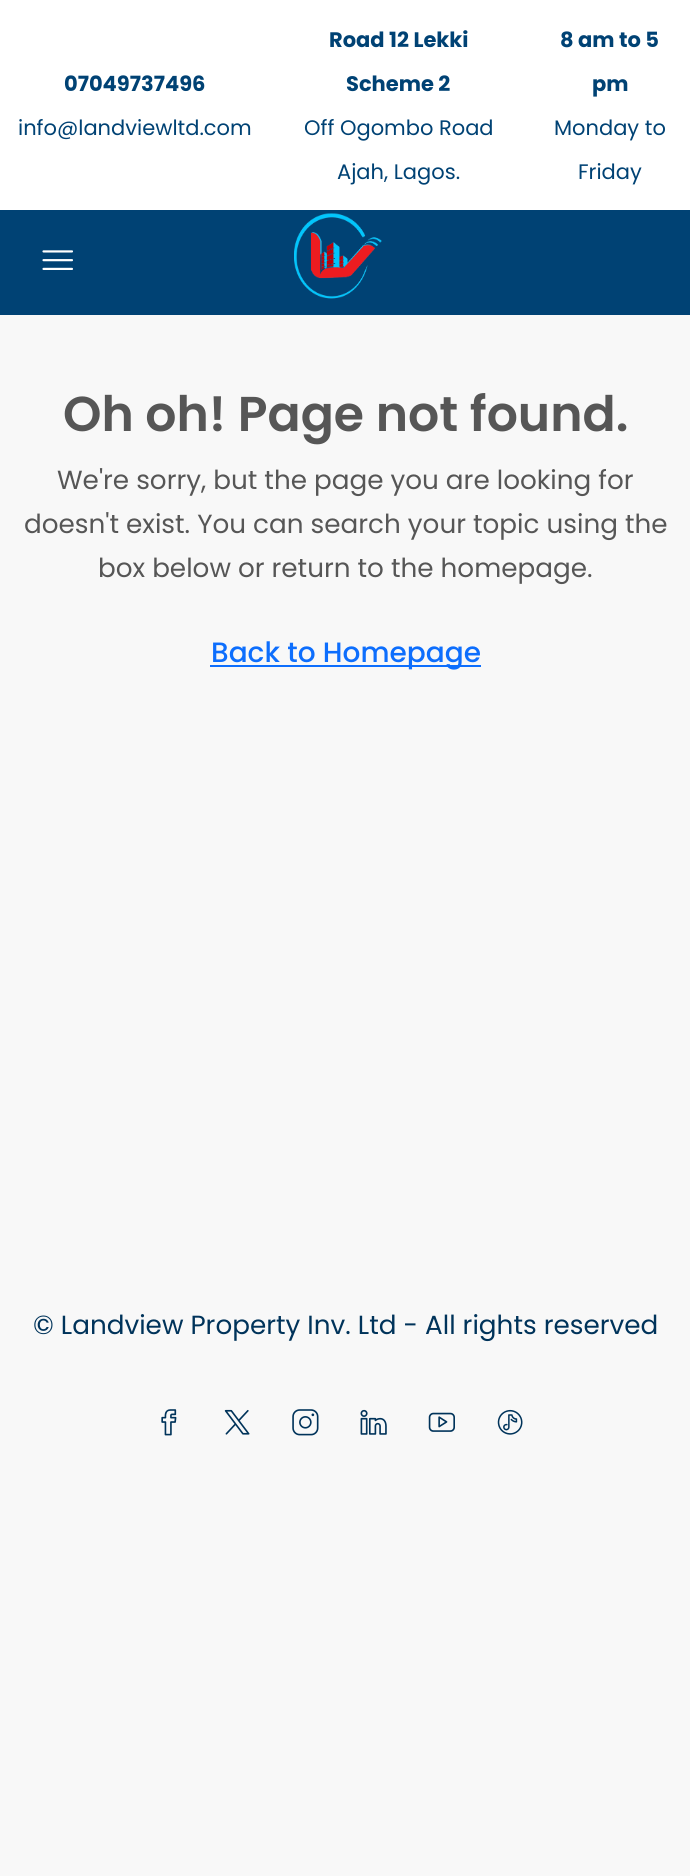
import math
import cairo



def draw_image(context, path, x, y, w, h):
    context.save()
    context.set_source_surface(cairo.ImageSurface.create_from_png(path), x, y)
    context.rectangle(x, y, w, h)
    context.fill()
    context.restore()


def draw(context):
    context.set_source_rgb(248 / 255, 248 / 255, 248 / 255)
    context.paint()
    context.set_source_rgb(1, 1, 1)
    context.rectangle(0, 0, 690, 210)
    context.fill()
    context.set_source_rgb(0, 66 / 255, 116 / 255)
    context.rectangle(0, 210, 690, 105)
    context.fill()
    draw_image(context, "images/1.png", 42, 250, 31, 20)
    draw_image(context, "images/2.png", 294, 213, 88, 86)
    context.set_source_rgb(13 / 255, 110 / 255, 253 / 255)
    context.rectangle(210, 665, 271, 2)
    context.fill()
    draw_image(context, "images/3.png", 161, 1409, 16, 27)
    draw_image(context, "images/4.png", 224, 1409, 26, 26)
    draw_image(context, "images/5.png", 292, 1409, 27, 27)
    draw_image(context, "images/6.png", 360, 1409, 27, 26)
    draw_image(context, "images/7.png", 428, 1412, 27, 20)
    draw_image(context, "images/8.png", 497, 1409, 26, 26)
    context.select_font_face("Poppins", cairo.FontSlant.NORMAL, cairo.FontWeight.BOLD)
    context.set_font_size(21)
    context.set_source_rgb(0, 66 / 255, 116 / 255)
    context.move_to(64, 91)
    context.show_text("07049737496")
    context.select_font_face("Poppins")
    context.move_to(18, 135)
    context.show_text("info@landviewltd.com")
    context.select_font_face("Poppins", cairo.FontSlant.NORMAL, cairo.FontWeight.BOLD)
    context.move_to(329, 47)
    context.show_text("Road 12 Lekki")
    context.move_to(346, 91)
    context.show_text("Scheme 2")
    context.select_font_face("Poppins")
    context.move_to(304, 135)
    context.show_text("Off Ogombo Road")
    context.move_to(337, 179)
    context.show_text("Ajah, Lagos.")
    context.select_font_face("Poppins", cairo.FontSlant.NORMAL, cairo.FontWeight.BOLD)
    context.move_to(560, 47)
    context.show_text("8 am to 5")
    context.move_to(592, 91)
    context.show_text("pm")
    context.select_font_face("Poppins")
    context.move_to(554, 135)
    context.show_text("Monday to")
    context.move_to(578, 179)
    context.show_text("Friday")
    context.select_font_face("Poppins SemiBold")
    context.set_font_size(48.9)
    context.set_source_rgb(86 / 255, 86 / 255, 86 / 255)
    context.move_to(63, 431)
    context.show_text("Oh oh! Page not found.")
    context.select_font_face("Poppins")
    context.set_font_size(26.25)
    context.move_to(57, 489)
    context.show_text("We're sorry, but the page you are looking for")
    context.move_to(24, 533)
    context.show_text("doesn't exist. You can search your topic using the")
    context.move_to(98, 577)
    context.show_text("box below or return to the homepage.")
    context.select_font_face("Poppins Medium")
    context.set_font_size(28)
    context.set_source_rgb(13 / 255, 110 / 255, 253 / 255)
    context.move_to(211, 662)
    context.show_text("Back to Homepage")
    context.select_font_face("Poppins")
    context.set_font_size(26.25)
    context.set_source_rgb(0, 51 / 255, 90 / 255)
    context.move_to(33, 1334)
    context.show_text("© Landview Property Inv. Ltd - All rights reserved")


surface = cairo.ImageSurface(cairo.Format.RGB24, 690, 1876)
context = cairo.Context(surface)
options = cairo.FontOptions()
options.set_hint_metrics(cairo.HintMetrics.OFF)
options.set_hint_style(cairo.HintStyle.NONE)
context.set_font_options(options)
context.set_miter_limit(4)
draw(context)
surface.write_to_png("out.png")
